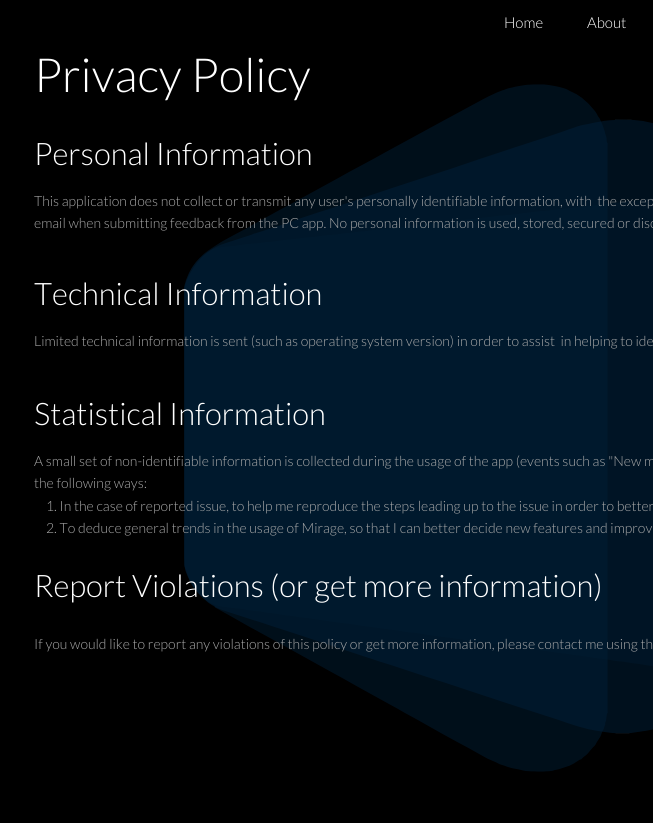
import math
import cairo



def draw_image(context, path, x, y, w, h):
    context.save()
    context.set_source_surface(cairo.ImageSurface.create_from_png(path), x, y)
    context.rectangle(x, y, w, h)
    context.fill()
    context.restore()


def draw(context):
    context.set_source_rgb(0, 0, 0)
    context.paint()
    draw_image(context, "images/1.png", 184, 84, 469, 688)
    context.select_font_face("Lato Light")
    context.set_font_size(15)
    context.set_source_rgb(1, 1, 1)
    context.move_to(504, 28)
    context.show_text("Home")
    context.move_to(587, 28)
    context.show_text("About")
    context.set_font_size(47)
    context.move_to(34, 92)
    context.show_text("Privacy Policy")
    context.set_font_size(31)
    context.move_to(34, 165)
    context.show_text("Personal Information")
    context.set_font_size(14)
    context.set_source_rgb(170 / 255, 170 / 255, 170 / 255)
    context.move_to(34, 206)
    context.show_text("This application does not collect or transmit any user's personally identifiable information, with  the excep")
    context.move_to(34, 228)
    context.show_text("email when submitting feedback from the PC app. No personal information is used, stored, secured or disc")
    context.set_font_size(31)
    context.set_source_rgb(1, 1, 1)
    context.move_to(34, 305)
    context.show_text("Technical Information")
    context.set_font_size(14)
    context.set_source_rgb(170 / 255, 170 / 255, 170 / 255)
    context.move_to(34, 346)
    context.show_text("Limited technical information is sent (such as operating system version) in order to assist  in helping to ide")
    context.set_font_size(31)
    context.set_source_rgb(1, 1, 1)
    context.move_to(34, 425)
    context.show_text("Statistical Information")
    context.set_font_size(14)
    context.set_source_rgb(170 / 255, 170 / 255, 170 / 255)
    context.move_to(34, 466)
    context.show_text("A small set of non-identifiable information is collected during the usage of the app (events such as \"New m")
    context.move_to(34, 488)
    context.show_text("the following ways:")
    context.move_to(46, 511)
    context.show_text("1. In the case of reported issue, to help me reproduce the steps leading up to the issue in order to better")
    context.move_to(46, 533)
    context.show_text("2. To deduce general trends in the usage of Mirage, so that I can better decide new features and improv")
    context.set_font_size(31)
    context.set_source_rgb(1, 1, 1)
    context.move_to(34, 597)
    context.show_text("Report Violations (or get more information)")
    context.set_font_size(14)
    context.set_source_rgb(170 / 255, 170 / 255, 170 / 255)
    context.move_to(34, 649)
    context.show_text("If you would like to report any violations of this policy or get more information, please contact me using th")


surface = cairo.ImageSurface(cairo.Format.RGB24, 653, 823)
context = cairo.Context(surface)
options = cairo.FontOptions()
options.set_hint_metrics(cairo.HintMetrics.OFF)
options.set_hint_style(cairo.HintStyle.NONE)
context.set_font_options(options)
context.set_miter_limit(4)
draw(context)
surface.write_to_png("out.png")
